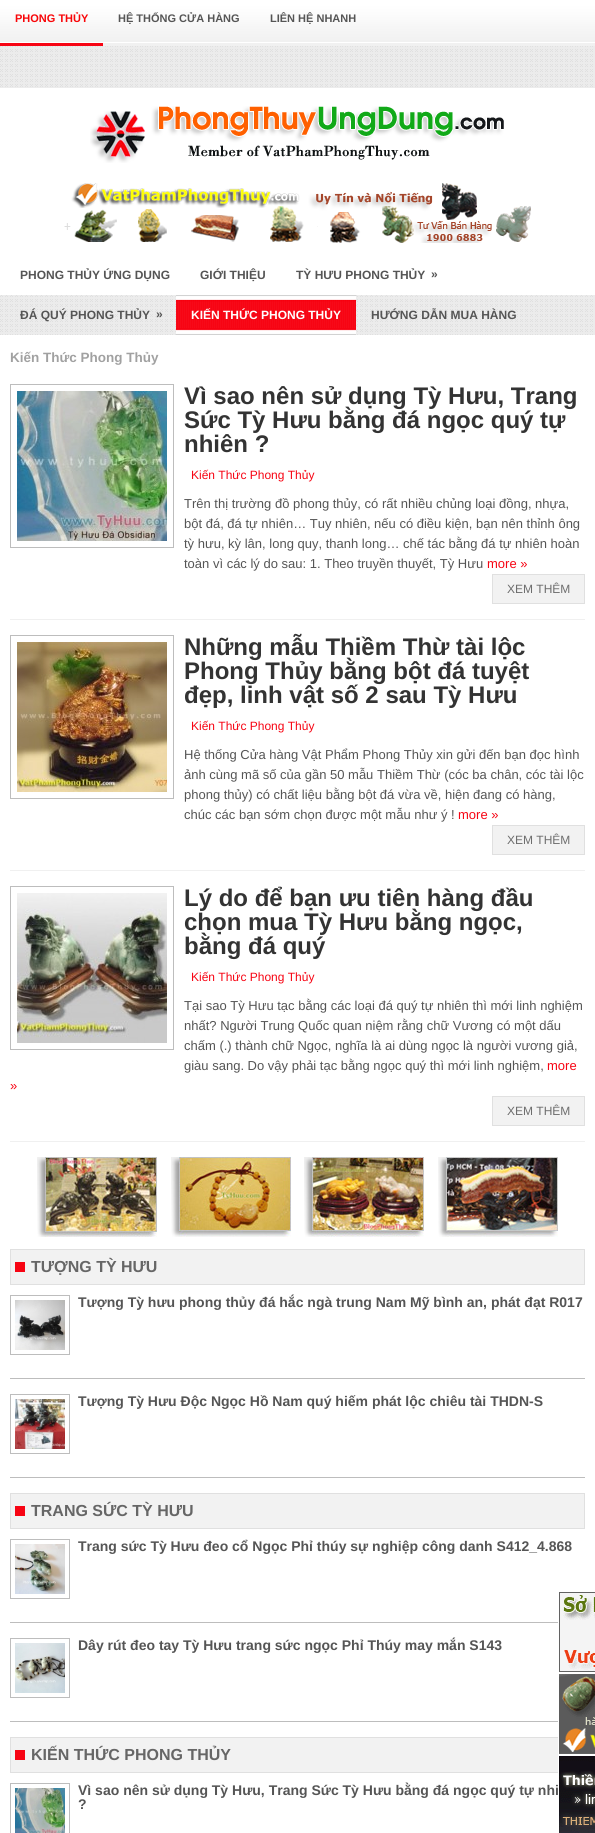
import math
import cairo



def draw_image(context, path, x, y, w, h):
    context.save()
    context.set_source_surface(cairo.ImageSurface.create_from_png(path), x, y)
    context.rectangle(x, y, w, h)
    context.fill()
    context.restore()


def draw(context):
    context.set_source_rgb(1, 1, 1)
    context.paint()
    draw_image(context, "images/1.png", 0, 46, 595, 289)
    draw_image(context, "images/2.png", 0, 0, 595, 46)
    context.set_source_rgb(247 / 255, 4 / 255, 19 / 255)
    context.rectangle(0, 43, 103, 3)
    context.fill()
    context.set_source_rgb(1, 1, 1)
    context.rectangle(0, 88, 595, 207)
    context.fill()
    draw_image(context, "images/3.png", 90, 106, 414, 57)
    draw_image(context, "images/4.png", 64, 183, 467, 60)
    draw_image(context, "images/5.png", 176, 295, 180, 40)
    context.set_source_rgb(240 / 255, 240 / 255, 240 / 255)
    context.rectangle(10, 619, 575, 1)
    context.fill()
    context.rectangle(10.5, 384.5, 163, 163)
    context.set_source_rgb(189 / 255, 189 / 255, 189 / 255)
    context.set_line_width(1)
    context.stroke()
    draw_image(context, "images/6.png", 17, 391, 150, 150)
    context.set_source_rgb(242 / 255, 242 / 255, 242 / 255)
    context.rectangle(492.5, 574.5, 92, 29)
    context.fill_preserve()
    context.set_source_rgb(224 / 255, 224 / 255, 224 / 255)
    context.stroke()
    context.set_source_rgb(240 / 255, 240 / 255, 240 / 255)
    context.rectangle(10, 870, 575, 1)
    context.fill()
    context.rectangle(10.5, 635.5, 163, 163)
    context.set_source_rgb(189 / 255, 189 / 255, 189 / 255)
    context.stroke()
    draw_image(context, "images/7.png", 17, 642, 150, 150)
    context.set_source_rgb(242 / 255, 242 / 255, 242 / 255)
    context.rectangle(492.5, 825.5, 92, 29)
    context.fill_preserve()
    context.set_source_rgb(224 / 255, 224 / 255, 224 / 255)
    context.stroke()
    context.set_source_rgb(240 / 255, 240 / 255, 240 / 255)
    context.rectangle(10, 1141, 575, 1)
    context.fill()
    context.rectangle(10.5, 886.5, 163, 163)
    context.set_source_rgb(189 / 255, 189 / 255, 189 / 255)
    context.stroke()
    draw_image(context, "images/8.png", 17, 893, 150, 150)
    context.set_source_rgb(242 / 255, 242 / 255, 242 / 255)
    context.rectangle(492.5, 1096.5, 92, 29)
    context.fill_preserve()
    context.set_source_rgb(224 / 255, 224 / 255, 224 / 255)
    context.stroke()
    draw_image(context, "images/9.png", 37, 1157, 120, 80)
    draw_image(context, "images/10.png", 171, 1157, 120, 80)
    draw_image(context, "images/11.png", 304, 1157, 120, 80)
    draw_image(context, "images/12.png", 438, 1157, 120, 80)
    context.set_source_rgb(242 / 255, 242 / 255, 242 / 255)
    context.rectangle(11, 1250, 573, 34)
    context.fill()
    context.set_source_rgb(247 / 255, 4 / 255, 19 / 255)
    context.rectangle(15, 1262, 10, 10)
    context.fill()
    context.rectangle(10.5, 1249.5, 574, 35)
    context.set_source_rgb(224 / 255, 224 / 255, 224 / 255)
    context.stroke()
    context.set_source_rgb(189 / 255, 189 / 255, 189 / 255)
    context.rectangle(10, 1378, 575, 1)
    context.fill()
    context.rectangle(10.5, 1295.5, 59, 59)
    context.stroke()
    draw_image(context, "images/13.png", 15, 1300, 50, 50)
    context.rectangle(10, 1477, 575, 1)
    context.fill()
    context.rectangle(10.5, 1394.5, 59, 59)
    context.stroke()
    draw_image(context, "images/14.png", 15, 1399, 50, 50)
    context.set_source_rgb(242 / 255, 242 / 255, 242 / 255)
    context.rectangle(11, 1494, 573, 34)
    context.fill()
    context.set_source_rgb(247 / 255, 4 / 255, 19 / 255)
    context.rectangle(15, 1506, 10, 10)
    context.fill()
    context.rectangle(10.5, 1493.5, 574, 35)
    context.set_source_rgb(224 / 255, 224 / 255, 224 / 255)
    context.stroke()
    context.set_source_rgb(189 / 255, 189 / 255, 189 / 255)
    context.rectangle(10, 1622, 548, 1)
    context.fill()
    context.rectangle(10.5, 1539.5, 59, 59)
    context.stroke()
    draw_image(context, "images/15.png", 15, 1544, 50, 50)
    context.rectangle(10, 1721, 548, 1)
    context.fill()
    context.rectangle(10.5, 1638.5, 59, 59)
    context.stroke()
    draw_image(context, "images/16.png", 15, 1643, 50, 50)
    context.set_source_rgb(242 / 255, 242 / 255, 242 / 255)
    context.rectangle(11, 1738, 547, 34)
    context.fill()
    context.set_source_rgb(247 / 255, 4 / 255, 19 / 255)
    context.rectangle(15, 1750, 10, 10)
    context.fill()
    context.rectangle(10.5, 1737.5, 574, 35)
    context.set_source_rgb(224 / 255, 224 / 255, 224 / 255)
    context.stroke()
    context.rectangle(10.5, 1783.5, 59, 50)
    context.set_source_rgb(189 / 255, 189 / 255, 189 / 255)
    context.stroke()
    draw_image(context, "images/17.png", 15, 1788, 50, 45)
    context.set_source_rgb(1, 1, 1)
    context.rectangle(558, 1737, 27, 36)
    context.fill()
    draw_image(context, "images/18.png", 559, 1592, 36, 80)
    draw_image(context, "images/19.png", 559, 1674, 36, 80)
    draw_image(context, "images/20.png", 559, 1756, 36, 77)
    context.select_font_face("Liberation Sans", cairo.FontSlant.NORMAL, cairo.FontWeight.BOLD)
    context.set_font_size(11)
    context.set_source_rgb(248 / 255, 5 / 255, 8 / 255)
    context.move_to(15, 22)
    context.show_text("PHONG THỦY")
    context.set_source_rgb(85 / 255, 85 / 255, 85 / 255)
    context.move_to(118, 22)
    context.show_text("HỆ THỐNG CỬA HÀNG")
    context.move_to(270, 22)
    context.show_text("LIÊN HỆ NHANH")
    context.set_font_size(12)
    context.move_to(20, 279)
    context.show_text("PHONG THỦY ỨNG DỤNG")
    context.move_to(200, 279)
    context.show_text("GIỚI THIỆU")
    context.move_to(296, 279)
    context.show_text("TỲ HƯU PHONG THỦY")
    context.move_to(431, 278)
    context.show_text("»")
    context.move_to(20, 319)
    context.show_text("ĐÁ QUÝ PHONG THỦY")
    context.move_to(156, 318)
    context.show_text("»")
    context.set_source_rgb(1, 1, 1)
    context.move_to(191, 319)
    context.show_text("KIẾN THỨC PHONG THỦY")
    context.set_source_rgb(85 / 255, 85 / 255, 85 / 255)
    context.move_to(371, 319)
    context.show_text("HƯỚNG DẪN MUA HÀNG")
    context.set_font_size(13.5)
    context.set_source_rgb(161 / 255, 161 / 255, 161 / 255)
    context.move_to(10, 362)
    context.show_text("Kiến Thức Phong Thủy")
    context.set_font_size(24)
    context.set_source_rgb(51 / 255, 51 / 255, 51 / 255)
    context.move_to(184, 404)
    context.show_text("Vì sao nên sử dụng Tỳ Hưu, Trang")
    context.move_to(184, 428)
    context.show_text("Sức Tỳ Hưu bằng đá ngọc quý tự")
    context.move_to(184, 452)
    context.show_text("nhiên ?")
    context.select_font_face("Liberation Sans")
    context.set_font_size(12)
    context.set_source_rgb(247 / 255, 4 / 255, 19 / 255)
    context.move_to(191, 479)
    context.show_text("Kiến Thức Phong Thủy")
    context.set_font_size(13)
    context.set_source_rgb(85 / 255, 85 / 255, 85 / 255)
    context.move_to(184, 508)
    context.show_text("Trên thị trường đồ phong thủy, có rất nhiều chủng loại đồng, nhựa,")
    context.move_to(184, 528)
    context.show_text("bột đá, đá tự nhiên… Tuy nhiên, nếu có điều kiện, bạn nên thỉnh ông")
    context.move_to(184, 548)
    context.show_text("tỳ hưu, kỳ lân, long quy, thanh long… chế tác bằng đá tự nhiên hoàn")
    context.move_to(184, 568)
    context.show_text("toàn vì các lý do sau: 1. Theo truyền thuyết, Tỳ Hưu")
    context.set_source_rgb(247 / 255, 4 / 255, 19 / 255)
    context.move_to(487, 568)
    context.show_text("more »")
    context.set_font_size(12)
    context.set_source_rgb(109 / 255, 109 / 255, 109 / 255)
    context.move_to(507, 593)
    context.show_text("XEM THÊM")
    context.select_font_face("Liberation Sans", cairo.FontSlant.NORMAL, cairo.FontWeight.BOLD)
    context.set_font_size(24)
    context.set_source_rgb(51 / 255, 51 / 255, 51 / 255)
    context.move_to(184, 655)
    context.show_text("Những mẫu Thiềm Thừ tài lộc")
    context.move_to(184, 679)
    context.show_text("Phong Thủy bằng bột đá tuyệt")
    context.move_to(184, 703)
    context.show_text("đẹp, linh vật số 2 sau Tỳ Hưu")
    context.select_font_face("Liberation Sans")
    context.set_font_size(12)
    context.set_source_rgb(247 / 255, 4 / 255, 19 / 255)
    context.move_to(191, 730)
    context.show_text("Kiến Thức Phong Thủy")
    context.set_font_size(13)
    context.set_source_rgb(85 / 255, 85 / 255, 85 / 255)
    context.move_to(184, 759)
    context.show_text("Hệ thống Cửa hàng Vật Phẩm Phong Thủy xin gửi đến bạn đọc hình")
    context.move_to(184, 779)
    context.show_text("ảnh cùng mã số của gần 50 mẫu Thiềm Thừ (cóc ba chân, cóc tài lộc")
    context.move_to(184, 799)
    context.show_text("phong thủy) có chất liệu bằng bột đá vừa về, hiện đang có hàng,")
    context.move_to(184, 819)
    context.show_text("chúc các bạn sớm chọn được một mẫu như ý !")
    context.set_source_rgb(247 / 255, 4 / 255, 19 / 255)
    context.move_to(458, 819)
    context.show_text("more »")
    context.set_font_size(12)
    context.set_source_rgb(109 / 255, 109 / 255, 109 / 255)
    context.move_to(507, 844)
    context.show_text("XEM THÊM")
    context.select_font_face("Liberation Sans", cairo.FontSlant.NORMAL, cairo.FontWeight.BOLD)
    context.set_font_size(24)
    context.set_source_rgb(51 / 255, 51 / 255, 51 / 255)
    context.move_to(184, 906)
    context.show_text("Lý do để bạn ưu tiên hàng đầu")
    context.move_to(184, 930)
    context.show_text("chọn mua Tỳ Hưu bằng ngọc,")
    context.move_to(184, 954)
    context.show_text("bằng đá quý")
    context.select_font_face("Liberation Sans")
    context.set_font_size(12)
    context.set_source_rgb(247 / 255, 4 / 255, 19 / 255)
    context.move_to(191, 981)
    context.show_text("Kiến Thức Phong Thủy")
    context.set_font_size(13)
    context.set_source_rgb(85 / 255, 85 / 255, 85 / 255)
    context.move_to(184, 1010)
    context.show_text("Tại sao Tỳ Hưu tạc bằng các loại đá quý tự nhiên thì mới linh nghiệm")
    context.move_to(184, 1030)
    context.show_text("nhất? Người Trung Quốc quan niệm rằng chữ Vương có một dấu")
    context.move_to(184, 1050)
    context.show_text("chấm (.) thành chữ Ngọc, nghĩa là ai dùng ngọc là người vương giả,")
    context.move_to(184, 1070)
    context.show_text("giàu sang. Do vậy phải tạc bằng ngọc quý thì mới linh nghiệm,")
    context.set_source_rgb(247 / 255, 4 / 255, 19 / 255)
    context.move_to(547, 1070)
    context.show_text("more")
    context.move_to(10, 1090)
    context.show_text("»")
    context.set_font_size(12)
    context.set_source_rgb(109 / 255, 109 / 255, 109 / 255)
    context.move_to(507, 1115)
    context.show_text("XEM THÊM")
    context.select_font_face("Liberation Sans", cairo.FontSlant.NORMAL, cairo.FontWeight.BOLD)
    context.set_font_size(16)
    context.set_source_rgb(102 / 255, 102 / 255, 102 / 255)
    context.move_to(31, 1272)
    context.show_text("TƯỢNG TỲ HƯU")
    context.set_font_size(14)
    context.set_source_rgb(85 / 255, 85 / 255, 85 / 255)
    context.move_to(78, 1307)
    context.show_text("Tượng Tỳ hưu phong thủy đá hắc ngà trung Nam Mỹ bình an, phát đạt R017")
    context.move_to(78, 1406)
    context.show_text("Tượng Tỳ Hưu Độc Ngọc Hồ Nam quý hiếm phát lộc chiêu tài THDN-S")
    context.set_font_size(16)
    context.set_source_rgb(102 / 255, 102 / 255, 102 / 255)
    context.move_to(31, 1516)
    context.show_text("TRANG SỨC TỲ HƯU")
    context.set_font_size(14)
    context.set_source_rgb(85 / 255, 85 / 255, 85 / 255)
    context.move_to(78, 1551)
    context.show_text("Trang sức Tỳ Hưu đeo cổ Ngọc Phỉ thúy sự nghiệp công danh S412_4.868")
    context.move_to(78, 1650)
    context.show_text("Dây rút đeo tay Tỳ Hưu trang sức ngọc Phỉ Thúy may mắn S143")
    context.set_font_size(16)
    context.set_source_rgb(102 / 255, 102 / 255, 102 / 255)
    context.move_to(31, 1760)
    context.show_text("KIẾN THỨC PHONG THỦY")
    context.set_font_size(14)
    context.set_source_rgb(85 / 255, 85 / 255, 85 / 255)
    context.move_to(78, 1795)
    context.show_text("Vì sao nên sử dụng Tỳ Hưu, Trang Sức Tỳ Hưu bằng đá ngọc quý tự nhi")
    context.move_to(78, 1809)
    context.show_text("?")


surface = cairo.ImageSurface(cairo.Format.RGB24, 595, 1833)
context = cairo.Context(surface)
options = cairo.FontOptions()
options.set_hint_metrics(cairo.HintMetrics.OFF)
options.set_hint_style(cairo.HintStyle.NONE)
context.set_font_options(options)
context.set_miter_limit(4)
draw(context)
surface.write_to_png("out.png")
